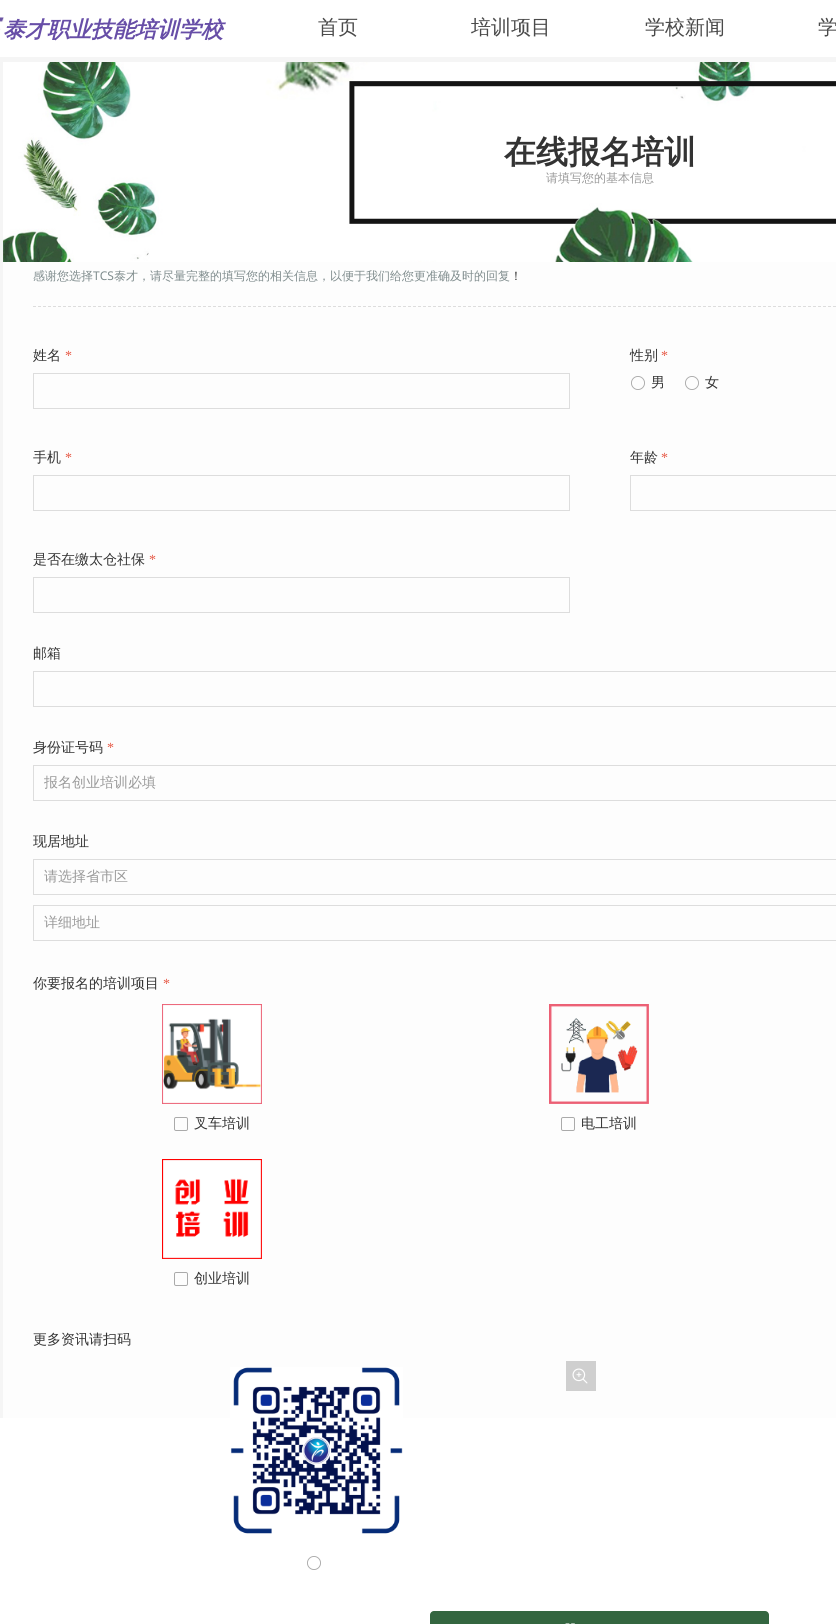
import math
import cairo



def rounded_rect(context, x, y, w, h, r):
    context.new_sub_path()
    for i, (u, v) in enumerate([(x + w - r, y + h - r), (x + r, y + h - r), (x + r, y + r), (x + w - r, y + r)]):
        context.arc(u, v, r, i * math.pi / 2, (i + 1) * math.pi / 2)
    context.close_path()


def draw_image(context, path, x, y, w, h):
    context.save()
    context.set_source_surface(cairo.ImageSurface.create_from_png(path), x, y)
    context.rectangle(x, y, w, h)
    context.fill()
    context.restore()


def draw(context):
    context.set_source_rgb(1, 1, 1)
    context.paint()
    draw_image(context, "images/1.png", 0, 17, 4, 13)
    context.set_source_rgb(245 / 255, 245 / 255, 245 / 255)
    context.rectangle(0, 57, 836, 1361)
    context.fill()
    context.set_source_rgb(253 / 255, 253 / 255, 253 / 255)
    context.rectangle(3, 262, 833, 1156)
    context.fill()
    draw_image(context, "images/2.png", 3, 62, 833, 200)
    context.new_path()
    context.move_to(33, 306.5)
    context.line_to(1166, 306.5)
    context.set_source_rgb(221 / 255, 221 / 255, 221 / 255)
    context.set_line_width(1)
    context.set_dash([3, 2])
    context.stroke()
    context.rectangle(33.5, 373.5, 536, 35)
    context.set_dash([])
    context.stroke()
    draw_image(context, "images/3.png", 631, 376, 14, 14)
    draw_image(context, "images/3.png", 685, 376, 14, 14)
    context.rectangle(33.5, 475.5, 536, 35)
    context.stroke()
    context.rectangle(630.5, 475.5, 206, 35)
    context.stroke()
    context.rectangle(33.5, 577.5, 536, 35)
    context.stroke()
    context.rectangle(33.5, 671.5, 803, 35)
    context.stroke()
    context.rectangle(33.5, 765.5, 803, 35)
    context.stroke()
    context.rectangle(33.5, 859.5, 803, 35)
    context.stroke()
    context.rectangle(33.5, 905.5, 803, 35)
    context.stroke()
    draw_image(context, "images/4.png", 162, 1004, 100, 100)
    draw_image(context, "images/5.png", 174, 1117, 14, 14)
    draw_image(context, "images/6.png", 549, 1004, 100, 100)
    draw_image(context, "images/5.png", 561, 1117, 14, 14)
    draw_image(context, "images/7.png", 162, 1159, 100, 100)
    draw_image(context, "images/5.png", 174, 1272, 14, 14)
    draw_image(context, "images/8.png", 230, 1367, 173, 167)
    context.set_source_rgb(207 / 255, 207 / 255, 207 / 255)
    context.rectangle(566, 1361, 30, 30)
    context.fill()
    draw_image(context, "images/9.png", 572, 1368, 16, 16)
    draw_image(context, "images/10.png", 307, 1556, 14, 14)
    context.set_source_rgb(52 / 255, 102 / 255, 64 / 255)
    rounded_rect(context, 430, 1611, 339, 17, 4)
    context.fill()
    draw_image(context, "images/11.png", 565, 1623, 10, 1)
    context.select_font_face("WenQuanYi Zen Hei", cairo.FontSlant.ITALIC, cairo.FontWeight.BOLD)
    context.set_font_size(22)
    context.set_source_rgb(103 / 255, 78 / 255, 167 / 255)
    context.move_to(3, 37)
    context.show_text("泰才职业技能培训学校")
    context.select_font_face("WenQuanYi Zen Hei Medium")
    context.set_font_size(20)
    context.set_source_rgb(74 / 255, 74 / 255, 74 / 255)
    context.move_to(318, 34)
    context.show_text("首页")
    context.move_to(471, 34)
    context.show_text("培训项目")
    context.move_to(645, 34)
    context.show_text("学校新闻")
    context.move_to(818, 34)
    context.show_text("学")
    context.select_font_face("WenQuanYi Zen Hei", cairo.FontSlant.NORMAL, cairo.FontWeight.BOLD)
    context.set_font_size(32)
    context.set_source_rgb(51 / 255, 51 / 255, 51 / 255)
    context.move_to(504, 163)
    context.show_text("在线报名培训")
    context.select_font_face("WenQuanYi Zen Hei Medium")
    context.set_font_size(12)
    context.set_source_rgb(153 / 255, 153 / 255, 153 / 255)
    context.move_to(546, 182)
    context.show_text("请填写您的基本信息")
    context.set_source_rgb(127 / 255, 140 / 255, 141 / 255)
    context.move_to(33, 280)
    context.show_text("感谢您选择")
    context.select_font_face("Noto Sans")
    context.move_to(93, 280)
    context.show_text("TCS")
    context.select_font_face("WenQuanYi Zen Hei Medium")
    context.move_to(114, 280)
    context.show_text("泰才，请尽量完整的填写您的相关信息，以便于我们给您更准确及时的回复")
    context.set_source_rgb(51 / 255, 51 / 255, 51 / 255)
    context.move_to(510, 280)
    context.show_text("！")
    context.set_font_size(14)
    context.move_to(33, 360)
    context.show_text("姓名")
    context.select_font_face("Liberation Serif")
    context.set_source_rgb(231 / 255, 88 / 255, 69 / 255)
    context.move_to(65, 360)
    context.show_text("*")
    context.select_font_face("WenQuanYi Zen Hei Medium")
    context.set_source_rgb(51 / 255, 51 / 255, 51 / 255)
    context.move_to(630, 360)
    context.show_text("性别")
    context.select_font_face("Liberation Serif")
    context.set_source_rgb(231 / 255, 88 / 255, 69 / 255)
    context.move_to(661, 360)
    context.show_text("*")
    context.select_font_face("WenQuanYi Zen Hei Medium")
    context.set_source_rgb(51 / 255, 51 / 255, 51 / 255)
    context.move_to(651, 387)
    context.show_text("男")
    context.move_to(705, 387)
    context.show_text("女")
    context.move_to(33, 462)
    context.show_text("手机")
    context.select_font_face("Liberation Serif")
    context.set_source_rgb(231 / 255, 88 / 255, 69 / 255)
    context.move_to(65, 462)
    context.show_text("*")
    context.select_font_face("WenQuanYi Zen Hei Medium")
    context.set_source_rgb(51 / 255, 51 / 255, 51 / 255)
    context.move_to(630, 462)
    context.show_text("年龄")
    context.select_font_face("Liberation Serif")
    context.set_source_rgb(231 / 255, 88 / 255, 69 / 255)
    context.move_to(661, 462)
    context.show_text("*")
    context.select_font_face("WenQuanYi Zen Hei Medium")
    context.set_source_rgb(51 / 255, 51 / 255, 51 / 255)
    context.move_to(33, 564)
    context.show_text("是否在缴太仓社保")
    context.select_font_face("Liberation Serif")
    context.set_source_rgb(231 / 255, 88 / 255, 69 / 255)
    context.move_to(149, 564)
    context.show_text("*")
    context.select_font_face("WenQuanYi Zen Hei Medium")
    context.set_source_rgb(51 / 255, 51 / 255, 51 / 255)
    context.move_to(33, 658)
    context.show_text("邮箱")
    context.move_to(33, 752)
    context.show_text("身份证号码")
    context.select_font_face("Liberation Serif")
    context.set_source_rgb(231 / 255, 88 / 255, 69 / 255)
    context.move_to(107, 752)
    context.show_text("*")
    context.select_font_face("WenQuanYi Zen Hei Medium")
    context.set_source_rgb(153 / 255, 153 / 255, 153 / 255)
    context.move_to(44, 787)
    context.show_text("报名创业培训必填")
    context.set_source_rgb(51 / 255, 51 / 255, 51 / 255)
    context.move_to(33, 846)
    context.show_text("现居地址")
    context.set_source_rgb(153 / 255, 153 / 255, 153 / 255)
    context.move_to(44, 881)
    context.show_text("请选择省市区")
    context.move_to(44, 927)
    context.show_text("详细地址")
    context.set_source_rgb(51 / 255, 51 / 255, 51 / 255)
    context.move_to(33, 988)
    context.show_text("你要报名的培训项目")
    context.select_font_face("Liberation Serif")
    context.set_source_rgb(231 / 255, 88 / 255, 69 / 255)
    context.move_to(163, 988)
    context.show_text("*")
    context.select_font_face("WenQuanYi Zen Hei Medium")
    context.set_source_rgb(51 / 255, 51 / 255, 51 / 255)
    context.move_to(194, 1128)
    context.show_text("叉车培训")
    context.move_to(581, 1128)
    context.show_text("电工培训")
    context.move_to(194, 1283)
    context.show_text("创业培训")
    context.move_to(33, 1344)
    context.show_text("更多资讯请扫码")


surface = cairo.ImageSurface(cairo.Format.RGB24, 836, 1624)
context = cairo.Context(surface)
options = cairo.FontOptions()
options.set_hint_metrics(cairo.HintMetrics.OFF)
options.set_hint_style(cairo.HintStyle.NONE)
context.set_font_options(options)
context.set_miter_limit(4)
draw(context)
surface.write_to_png("out.png")
